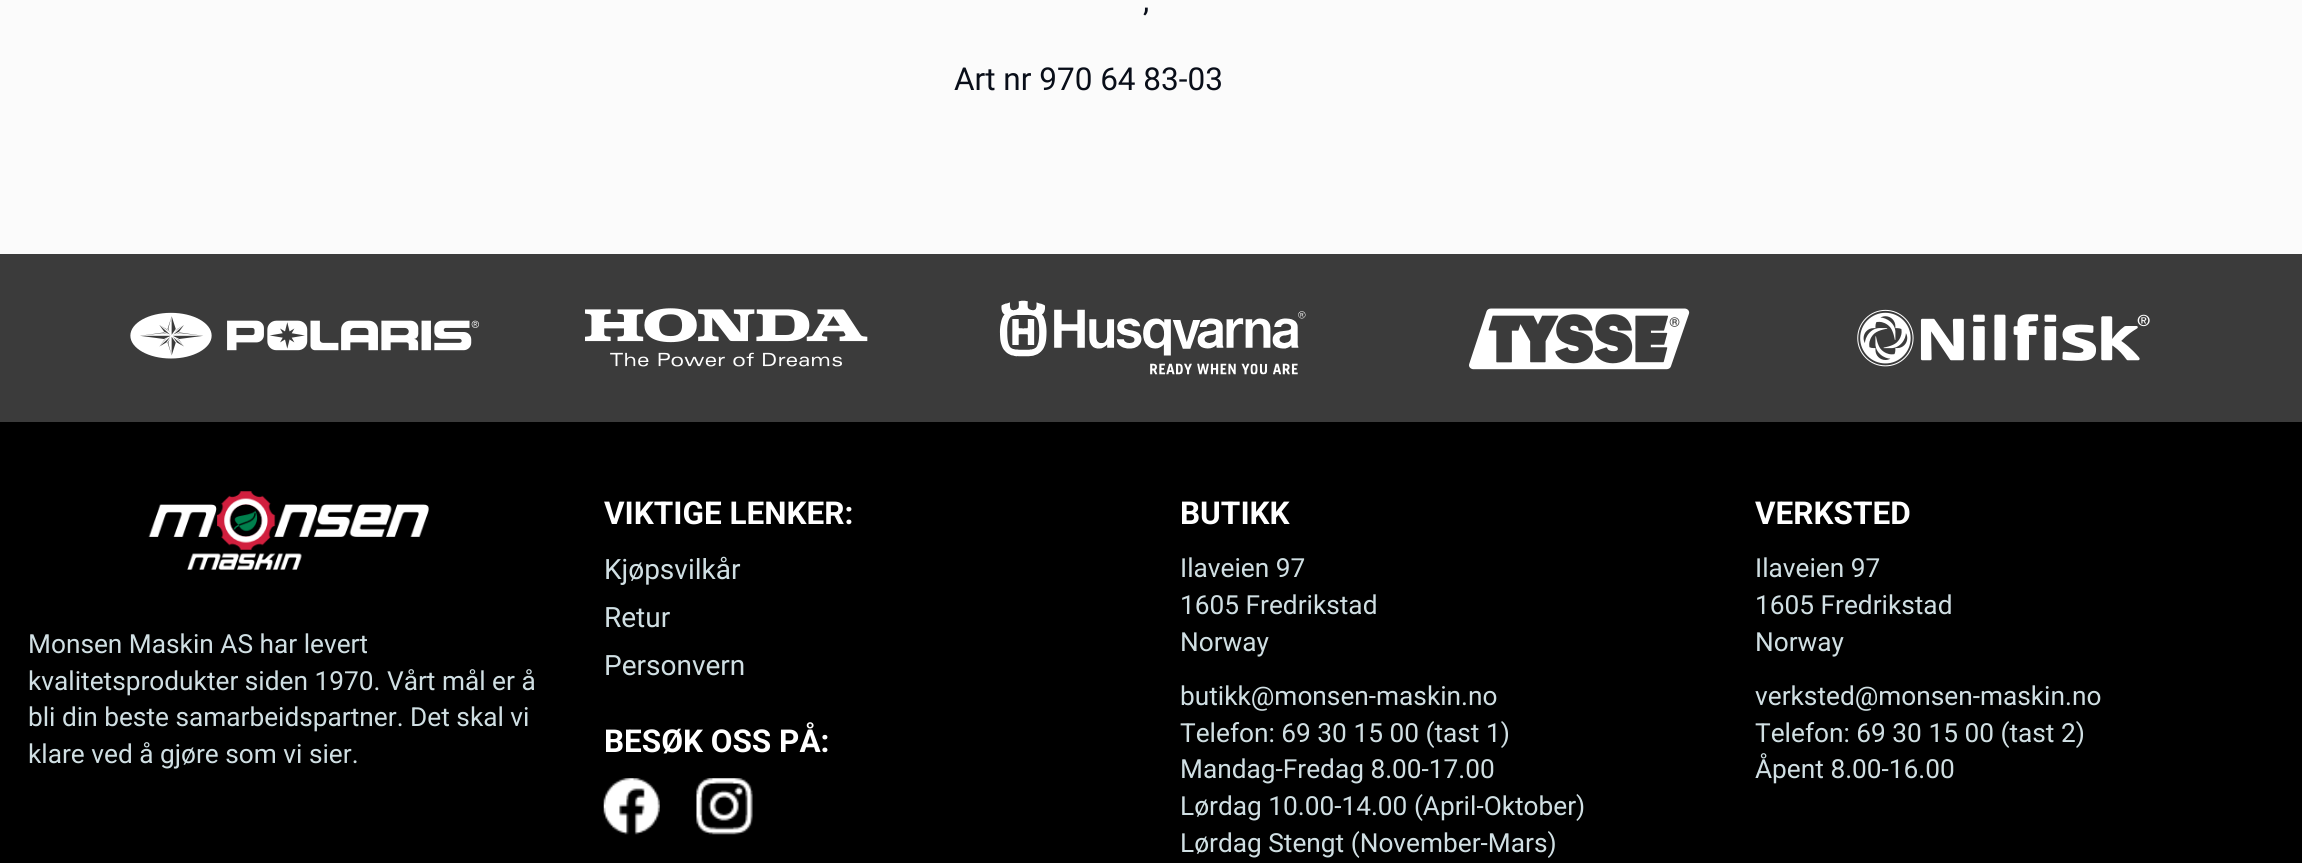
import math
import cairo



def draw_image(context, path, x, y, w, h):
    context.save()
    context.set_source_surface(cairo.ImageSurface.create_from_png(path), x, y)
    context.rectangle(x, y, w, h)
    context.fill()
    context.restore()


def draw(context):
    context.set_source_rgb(251 / 255, 251 / 255, 251 / 255)
    context.paint()
    context.set_source_rgb(0, 0, 0)
    context.rectangle(0, 422, 2302, 441)
    context.fill()
    context.set_source_rgb(59 / 255, 59 / 255, 59 / 255)
    context.rectangle(0, 254, 2302, 168)
    context.fill()
    draw_image(context, "images/1.png", 130, 312, 349, 47)
    draw_image(context, "images/2.png", 585, 308, 283, 59)
    draw_image(context, "images/3.png", 999, 300, 307, 75)
    draw_image(context, "images/4.png", 1469, 308, 221, 62)
    draw_image(context, "images/5.png", 1857, 309, 293, 58)
    draw_image(context, "images/6.png", 148, 491, 281, 79)
    draw_image(context, "images/7.png", 603, 778, 57, 57)
    draw_image(context, "images/8.png", 696, 778, 57, 57)
    context.select_font_face("Roboto")
    context.set_font_size(31.5)
    context.set_source_rgb(9 / 255, 14 / 255, 25 / 255)
    context.move_to(1143, 11)
    context.show_text(",")
    context.move_to(954, 90)
    context.show_text("Art nr 970 64 83-03")
    context.set_font_size(26.25)
    context.set_source_rgb(208 / 255, 223 / 255, 227 / 255)
    context.move_to(28, 653)
    context.show_text("Monsen Maskin AS har levert")
    context.move_to(28, 690)
    context.show_text("kvalitetsprodukter siden 1970. Vårt mål er å")
    context.move_to(28, 726)
    context.show_text("bli din beste samarbeidspartner. Det skal vi")
    context.move_to(28, 763)
    context.show_text("klare ved å gjøre som vi sier.")
    context.select_font_face("Roboto", cairo.FontSlant.NORMAL, cairo.FontWeight.BOLD)
    context.set_font_size(31.5)
    context.set_source_rgb(1, 1, 1)
    context.move_to(604, 524)
    context.show_text("VIKTIGE LENKER:")
    context.select_font_face("Roboto")
    context.set_font_size(28)
    context.set_source_rgb(208 / 255, 223 / 255, 227 / 255)
    context.move_to(604, 579)
    context.show_text("Kjøpsvilkår")
    context.move_to(604, 627)
    context.show_text("Retur")
    context.move_to(604, 675)
    context.show_text("Personvern")
    context.select_font_face("Roboto", cairo.FontSlant.NORMAL, cairo.FontWeight.BOLD)
    context.set_font_size(31.5)
    context.set_source_rgb(1, 1, 1)
    context.move_to(604, 752)
    context.show_text("BESØK OSS PÅ:")
    context.move_to(1180, 524)
    context.show_text("BUTIKK")
    context.select_font_face("Roboto")
    context.set_font_size(26.25)
    context.set_source_rgb(208 / 255, 223 / 255, 227 / 255)
    context.move_to(1180, 577)
    context.show_text("Ilaveien 97")
    context.move_to(1180, 614)
    context.show_text("1605 Fredrikstad")
    context.move_to(1180, 651)
    context.show_text("Norway")
    context.move_to(1180, 705)
    context.show_text("butikk@monsen-maskin.no")
    context.move_to(1180, 742)
    context.show_text("Telefon: 69 30 15 00 (tast 1)")
    context.move_to(1180, 778)
    context.show_text("Mandag-Fredag 8.00-17.00")
    context.move_to(1180, 815)
    context.show_text("Lørdag 10.00-14.00 (April-Oktober)")
    context.move_to(1180, 852)
    context.show_text("Lørdag Stengt (November-Mars)")
    context.select_font_face("Roboto", cairo.FontSlant.NORMAL, cairo.FontWeight.BOLD)
    context.set_font_size(31.5)
    context.set_source_rgb(1, 1, 1)
    context.move_to(1755, 524)
    context.show_text("VERKSTED")
    context.select_font_face("Roboto")
    context.set_font_size(26.25)
    context.set_source_rgb(208 / 255, 223 / 255, 227 / 255)
    context.move_to(1755, 577)
    context.show_text("Ilaveien 97")
    context.move_to(1755, 614)
    context.show_text("1605 Fredrikstad")
    context.move_to(1755, 651)
    context.show_text("Norway")
    context.move_to(1755, 705)
    context.show_text("verksted@monsen-maskin.no")
    context.move_to(1755, 742)
    context.show_text("Telefon: 69 30 15 00 (tast 2)")
    context.move_to(1755, 778)
    context.show_text("Åpent 8.00-16.00")


surface = cairo.ImageSurface(cairo.Format.RGB24, 2302, 863)
context = cairo.Context(surface)
options = cairo.FontOptions()
options.set_hint_metrics(cairo.HintMetrics.OFF)
options.set_hint_style(cairo.HintStyle.NONE)
context.set_font_options(options)
context.set_miter_limit(4)
draw(context)
surface.write_to_png("out.png")
